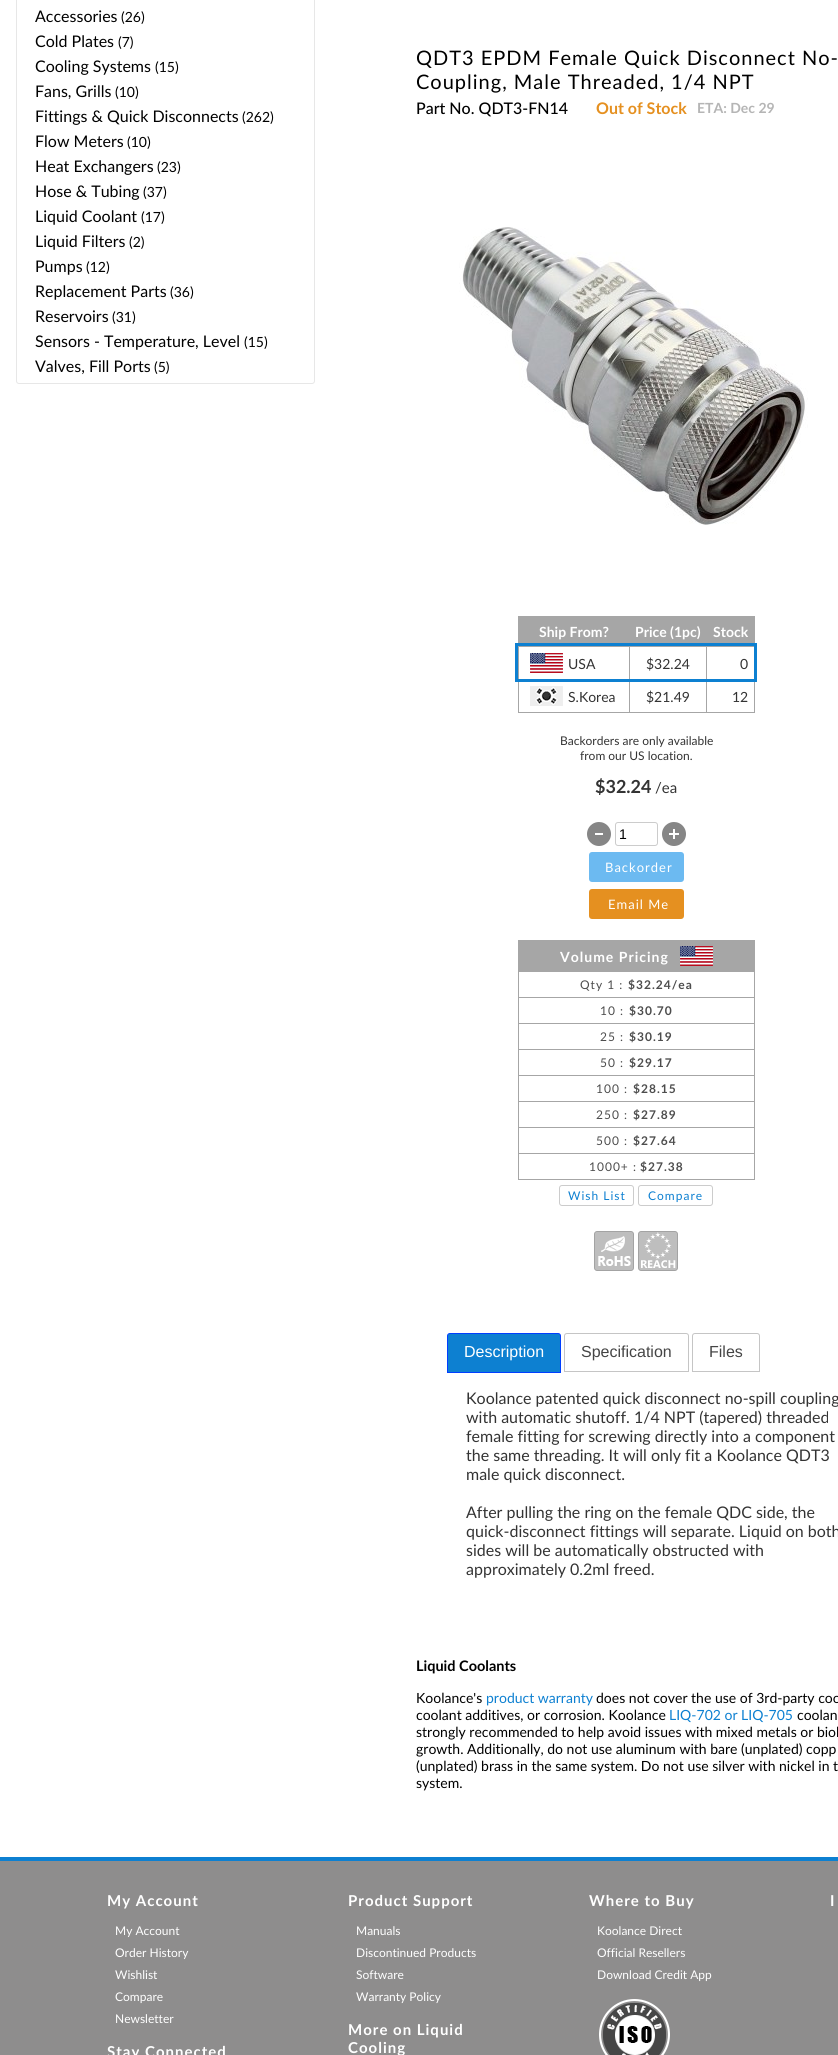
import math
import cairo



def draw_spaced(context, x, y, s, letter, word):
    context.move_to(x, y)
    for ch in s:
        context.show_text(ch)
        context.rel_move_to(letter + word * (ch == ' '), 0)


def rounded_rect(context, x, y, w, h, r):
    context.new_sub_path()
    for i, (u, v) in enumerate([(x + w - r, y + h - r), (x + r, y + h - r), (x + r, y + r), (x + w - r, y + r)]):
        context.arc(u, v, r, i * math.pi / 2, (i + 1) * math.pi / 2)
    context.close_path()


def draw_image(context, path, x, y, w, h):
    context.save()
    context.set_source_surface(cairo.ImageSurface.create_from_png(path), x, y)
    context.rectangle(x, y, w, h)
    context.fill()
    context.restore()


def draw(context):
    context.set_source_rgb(1, 1, 1)
    context.paint()
    rounded_rect(context, 16.5, -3.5, 298, 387, 2.5)
    context.set_source_rgb(231 / 255, 231 / 255, 231 / 255)
    context.set_line_width(1)
    context.stroke()
    draw_image(context, "images/1.png", 459, 227, 349, 298)
    context.set_source_rgb(166 / 255, 166 / 255, 166 / 255)
    context.rectangle(518, 616, 237, 1)
    context.fill()
    context.rectangle(754, 616, 1, 97)
    context.fill()
    context.rectangle(518, 712, 237, 1)
    context.fill()
    context.rectangle(518, 616, 1, 97)
    context.fill()
    context.rectangle(629, 646, 1, 67)
    context.fill()
    context.rectangle(706, 646, 1, 67)
    context.fill()
    context.rectangle(519, 617, 235, 30)
    context.fill()
    draw_image(context, "images/2.png", 530, 653, 33, 20)
    draw_image(context, "images/3.png", 530, 686, 33, 20)
    context.rectangle(516.5, 644.5, 239, 36)
    context.set_source_rgb(13 / 255, 128 / 255, 209 / 255)
    context.set_line_width(3)
    context.stroke()
    draw_image(context, "images/4.png", 587, 822, 24, 24)
    rounded_rect(context, 615.5, 822.5, 42, 23, 2.5)
    context.set_source_rgb(204 / 255, 204 / 255, 204 / 255)
    context.set_line_width(1)
    context.stroke()
    draw_image(context, "images/5.png", 662, 822, 24, 24)
    context.set_source_rgb(108 / 255, 186 / 255, 241 / 255)
    rounded_rect(context, 589, 852, 95, 30, 3)
    context.fill()
    context.set_source_rgb(229 / 255, 144 / 255, 32 / 255)
    rounded_rect(context, 589, 889, 95, 30, 3)
    context.fill()
    context.set_source_rgb(166 / 255, 166 / 255, 166 / 255)
    context.rectangle(518, 941, 236, 30)
    context.fill()
    context.rectangle(518, 940, 237, 1)
    context.fill()
    context.rectangle(518, 971, 237, 1)
    context.fill()
    context.rectangle(518, 997, 237, 1)
    context.fill()
    context.rectangle(518, 1023, 237, 1)
    context.fill()
    context.rectangle(518, 1049, 237, 1)
    context.fill()
    context.rectangle(518, 1075, 237, 1)
    context.fill()
    context.rectangle(518, 1101, 237, 1)
    context.fill()
    context.rectangle(518, 1127, 237, 1)
    context.fill()
    context.rectangle(518, 1153, 237, 1)
    context.fill()
    context.rectangle(754, 1153, 1, 27)
    context.fill()
    context.rectangle(754, 1127, 1, 27)
    context.fill()
    context.rectangle(754, 1101, 1, 27)
    context.fill()
    context.rectangle(754, 1075, 1, 27)
    context.fill()
    context.rectangle(754, 1049, 1, 27)
    context.fill()
    context.rectangle(754, 1023, 1, 27)
    context.fill()
    context.rectangle(754, 997, 1, 27)
    context.fill()
    context.rectangle(754, 971, 1, 27)
    context.fill()
    context.rectangle(754, 940, 1, 32)
    context.fill()
    draw_image(context, "images/2.png", 680, 946, 33, 20)
    context.rectangle(518, 1179, 237, 1)
    context.fill()
    context.rectangle(518, 1153, 1, 27)
    context.fill()
    context.rectangle(518, 1127, 1, 27)
    context.fill()
    context.rectangle(518, 1101, 1, 27)
    context.fill()
    context.rectangle(518, 1075, 1, 27)
    context.fill()
    context.rectangle(518, 1049, 1, 27)
    context.fill()
    context.rectangle(518, 1023, 1, 27)
    context.fill()
    context.rectangle(518, 997, 1, 27)
    context.fill()
    context.rectangle(518, 971, 1, 27)
    context.fill()
    rounded_rect(context, 559.5, 1185.5, 74, 20, 2.5)
    context.set_source_rgb(204 / 255, 204 / 255, 204 / 255)
    context.stroke()
    rounded_rect(context, 638.5, 1185.5, 74, 20, 2.5)
    context.stroke()
    draw_image(context, "images/6.png", 594, 1231, 40, 40)
    draw_image(context, "images/7.png", 638, 1231, 40, 40)
    context.set_source_rgb(13 / 255, 128 / 255, 209 / 255)
    context.new_path()
    context.move_to(450, 1333.5)
    context.line_to(558, 1333.5)
    context.curve_to(559.5, 1333.5, 560.5, 1334.5, 560.5, 1336)
    context.line_to(560.5, 1372.5)
    context.line_to(447.5, 1372.5)
    context.line_to(447.5, 1336)
    context.curve_to(447.5, 1334.5, 448.5, 1333.5, 450, 1333.5)
    context.close_path()
    context.fill_preserve()
    context.set_source_rgb(0, 62 / 255, 1)
    context.stroke()
    context.new_path()
    context.move_to(567, 1333.5)
    context.line_to(686, 1333.5)
    context.curve_to(687.5, 1333.5, 688.5, 1334.5, 688.5, 1336)
    context.line_to(688.5, 1371.5)
    context.line_to(564.5, 1371.5)
    context.line_to(564.5, 1336)
    context.curve_to(564.5, 1334.5, 565.5, 1333.5, 567, 1333.5)
    context.close_path()
    context.set_source_rgb(197 / 255, 197 / 255, 197 / 255)
    context.stroke()
    context.new_path()
    context.move_to(695, 1333.5)
    context.line_to(757, 1333.5)
    context.curve_to(758.5, 1333.5, 759.5, 1334.5, 759.5, 1336)
    context.line_to(759.5, 1371.5)
    context.line_to(692.5, 1371.5)
    context.line_to(692.5, 1336)
    context.curve_to(692.5, 1334.5, 693.5, 1333.5, 695, 1333.5)
    context.close_path()
    context.stroke()
    context.set_source_rgb(142 / 255, 141 / 255, 141 / 255)
    context.rectangle(0, 1861, 838, 194)
    context.fill()
    context.set_source_rgb(13 / 255, 128 / 255, 209 / 255)
    context.rectangle(0, 1857, 838, 4)
    context.fill()
    draw_image(context, "images/8.png", 599, 1999, 71, 56)
    context.select_font_face("Lato")
    context.set_font_size(16)
    context.set_source_rgb(0, 0, 0)
    context.move_to(35, 22)
    context.show_text("Accessories")
    context.set_font_size(14)
    context.move_to(121, 22)
    context.show_text("(26)")
    context.set_font_size(16)
    context.move_to(35, 47)
    context.show_text("Cold Plates")
    context.set_font_size(14)
    context.move_to(118, 47)
    context.show_text("(7)")
    context.set_font_size(16)
    context.move_to(35, 72)
    context.show_text("Cooling Systems")
    context.set_font_size(14)
    context.move_to(155, 72)
    context.show_text("(15)")
    context.set_font_size(16)
    context.move_to(35, 97)
    context.show_text("Fans, Grills")
    context.set_font_size(14)
    context.move_to(115, 97)
    context.show_text("(10)")
    context.set_font_size(16)
    context.move_to(35, 122)
    context.show_text("Fittings & Quick Disconnects")
    context.set_font_size(14)
    context.move_to(242, 122)
    context.show_text("(262)")
    context.set_font_size(16)
    context.move_to(35, 147)
    context.show_text("Flow Meters")
    context.set_font_size(14)
    context.move_to(127, 147)
    context.show_text("(10)")
    context.set_font_size(16)
    context.move_to(35, 172)
    context.show_text("Heat Exchangers")
    context.set_font_size(14)
    context.move_to(157, 172)
    context.show_text("(23)")
    context.set_font_size(16)
    context.move_to(35, 197)
    context.show_text("Hose & Tubing")
    context.set_font_size(14)
    context.move_to(143, 197)
    context.show_text("(37)")
    context.set_font_size(16)
    context.move_to(35, 222)
    context.show_text("Liquid Coolant")
    context.set_font_size(14)
    context.move_to(141, 222)
    context.show_text("(17)")
    context.set_font_size(16)
    context.move_to(35, 247)
    context.show_text("Liquid Filters")
    context.set_font_size(14)
    context.move_to(129, 247)
    context.show_text("(2)")
    context.set_font_size(16)
    context.move_to(35, 272)
    context.show_text("Pumps")
    context.set_font_size(14)
    context.move_to(86, 272)
    context.show_text("(12)")
    context.set_font_size(16)
    context.move_to(35, 297)
    context.show_text("Replacement Parts")
    context.set_font_size(14)
    context.move_to(170, 297)
    context.show_text("(36)")
    context.set_font_size(16)
    context.move_to(35, 322)
    context.show_text("Reservoirs")
    context.set_font_size(14)
    context.move_to(112, 322)
    context.show_text("(31)")
    context.set_font_size(16)
    context.move_to(35, 347)
    context.show_text("Sensors - Temperature, Level")
    context.set_font_size(14)
    context.move_to(244, 347)
    context.show_text("(15)")
    context.set_font_size(16)
    context.move_to(35, 372)
    context.show_text("Valves, Fill Ports")
    context.set_font_size(14)
    context.move_to(154, 372)
    context.show_text("(5)")
    context.set_font_size(20)
    draw_spaced(context, 416, 65, "QDT3 EPDM Female Quick Disconnect No-", 1, 0)
    draw_spaced(context, 416, 89, "Coupling, Male Threaded, 1/4 NPT", 1, 0)
    context.select_font_face("Lato Medium")
    context.set_font_size(16)
    context.move_to(416, 114)
    context.show_text("Part No. QDT3-FN14")
    context.select_font_face("Lato", cairo.FontSlant.NORMAL, cairo.FontWeight.BOLD)
    context.set_source_rgb(229 / 255, 144 / 255, 32 / 255)
    context.move_to(596, 114)
    context.show_text("Out of Stock")
    context.set_font_size(14)
    context.set_source_rgb(181 / 255, 181 / 255, 181 / 255)
    context.move_to(697, 113)
    context.show_text("ETA: Dec 29")
    context.set_source_rgb(1, 1, 1)
    context.move_to(539, 637)
    context.show_text("Ship From?")
    context.move_to(635, 637)
    context.show_text("Price (1pc)")
    context.move_to(713, 637)
    context.show_text("Stock")
    context.select_font_face("Lato")
    context.set_source_rgb(51 / 255, 51 / 255, 51 / 255)
    context.move_to(568, 669)
    context.show_text("USA")
    context.move_to(646, 669)
    context.show_text("$32.24")
    context.move_to(740, 669)
    context.show_text("0")
    context.move_to(568, 702)
    context.show_text("S.Korea")
    context.move_to(646, 702)
    context.show_text("$21.49")
    context.move_to(732, 702)
    context.show_text("12")
    context.set_font_size(12)
    context.move_to(560, 745)
    context.show_text("Backorders are only available")
    context.move_to(580, 760)
    context.show_text("from our US location.")
    context.select_font_face("Lato", cairo.FontSlant.NORMAL, cairo.FontWeight.BOLD)
    context.set_font_size(18)
    context.move_to(595, 793)
    context.show_text("$32.24")
    context.select_font_face("Lato")
    context.set_font_size(15)
    context.move_to(655, 793)
    context.show_text("/ea")
    context.select_font_face("Liberation Sans")
    context.set_font_size(14)
    context.set_source_rgb(0, 0, 0)
    context.move_to(619, 839)
    context.show_text("1")
    context.select_font_face("Lato")
    context.set_font_size(13)
    context.set_source_rgb(1, 1, 1)
    draw_spaced(context, 605, 872, "Backorder", 1, 0)
    draw_spaced(context, 608, 909, "Email Me", 1, 0)
    context.select_font_face("Lato", cairo.FontSlant.NORMAL, cairo.FontWeight.BOLD)
    context.set_font_size(14)
    draw_spaced(context, 560, 962, "Volume Pricing", 1, 0)
    context.select_font_face("Lato")
    context.set_font_size(12)
    context.set_source_rgb(77 / 255, 77 / 255, 77 / 255)
    draw_spaced(context, 580, 989, "Qty 1 :", 1, 0)
    context.select_font_face("Lato", cairo.FontSlant.NORMAL, cairo.FontWeight.BOLD)
    draw_spaced(context, 628, 989, "$32.24/ea", 1, 0)
    context.select_font_face("Lato")
    draw_spaced(context, 600, 1015, "10 :", 1, 0)
    context.select_font_face("Lato", cairo.FontSlant.NORMAL, cairo.FontWeight.BOLD)
    draw_spaced(context, 629, 1015, "$30.70", 1, 0)
    context.select_font_face("Lato")
    draw_spaced(context, 600, 1041, "25 :", 1, 0)
    context.select_font_face("Lato", cairo.FontSlant.NORMAL, cairo.FontWeight.BOLD)
    draw_spaced(context, 629, 1041, "$30.19", 1, 0)
    context.select_font_face("Lato")
    draw_spaced(context, 600, 1067, "50 :", 1, 0)
    context.select_font_face("Lato", cairo.FontSlant.NORMAL, cairo.FontWeight.BOLD)
    draw_spaced(context, 629, 1067, "$29.17", 1, 0)
    context.select_font_face("Lato")
    draw_spaced(context, 596, 1093, "100 :", 1, 0)
    context.select_font_face("Lato", cairo.FontSlant.NORMAL, cairo.FontWeight.BOLD)
    draw_spaced(context, 633, 1093, "$28.15", 1, 0)
    context.select_font_face("Lato")
    draw_spaced(context, 596, 1119, "250 :", 1, 0)
    context.select_font_face("Lato", cairo.FontSlant.NORMAL, cairo.FontWeight.BOLD)
    draw_spaced(context, 633, 1119, "$27.89", 1, 0)
    context.select_font_face("Lato")
    draw_spaced(context, 596, 1145, "500 :", 1, 0)
    context.select_font_face("Lato", cairo.FontSlant.NORMAL, cairo.FontWeight.BOLD)
    draw_spaced(context, 633, 1145, "$27.64", 1, 0)
    context.select_font_face("Lato")
    draw_spaced(context, 589, 1171, "1000+ :", 1, 0)
    context.select_font_face("Lato", cairo.FontSlant.NORMAL, cairo.FontWeight.BOLD)
    draw_spaced(context, 640, 1171, "$27.38", 1, 0)
    context.select_font_face("Lato")
    context.set_source_rgb(13 / 255, 128 / 255, 209 / 255)
    draw_spaced(context, 568, 1200, "Wish List", 1, 0)
    draw_spaced(context, 648, 1200, "Compare", 1, 0)
    context.select_font_face("Liberation Sans")
    context.set_font_size(16)
    context.set_source_rgb(1, 1, 1)
    context.move_to(464, 1357)
    context.show_text("Description")
    context.set_source_rgb(69 / 255, 69 / 255, 69 / 255)
    context.move_to(581, 1357)
    context.show_text("Specification")
    context.move_to(709, 1357)
    context.show_text("Files")
    context.select_font_face("Lato")
    context.set_source_rgb(51 / 255, 51 / 255, 51 / 255)
    context.move_to(466, 1404)
    context.show_text("Koolance patented quick disconnect no-spill coupling")
    context.move_to(466, 1423)
    context.show_text("with automatic shutoff. 1/4 NPT (tapered) threaded")
    context.move_to(466, 1442)
    context.show_text("female fitting for screwing directly into a component")
    context.move_to(466, 1461)
    context.show_text("the same threading. It will only fit a Koolance QDT3")
    context.move_to(466, 1480)
    context.show_text("male quick disconnect.")
    context.move_to(466, 1518)
    context.show_text("After pulling the ring on the female QDC side, the")
    context.move_to(466, 1537)
    context.show_text("quick-disconnect fittings will separate. Liquid on both")
    context.move_to(466, 1556)
    context.show_text("sides will be automatically obstructed with")
    context.move_to(466, 1575)
    context.show_text("approximately 0.2ml freed.")
    context.select_font_face("Lato", cairo.FontSlant.NORMAL, cairo.FontWeight.BOLD)
    context.set_font_size(14.5)
    context.set_source_rgb(0, 0, 0)
    context.move_to(416, 1671)
    context.show_text("Liquid Coolants")
    context.select_font_face("Lato")
    context.set_font_size(14)
    context.move_to(416, 1703)
    context.show_text("Koolance's")
    context.set_source_rgb(13 / 255, 128 / 255, 209 / 255)
    context.move_to(486, 1703)
    context.show_text("product warranty")
    context.set_source_rgb(0, 0, 0)
    context.move_to(596, 1703)
    context.show_text("does not cover the use of 3rd-party coo")
    context.move_to(416, 1720)
    context.show_text("coolant additives, or corrosion. Koolance")
    context.set_source_rgb(13 / 255, 128 / 255, 209 / 255)
    context.move_to(669, 1720)
    context.show_text("LIQ-702 or LIQ-705")
    context.set_source_rgb(0, 0, 0)
    context.move_to(797, 1720)
    context.show_text("coolan")
    context.move_to(416, 1737)
    context.show_text("strongly recommended to help avoid issues with mixed metals or biol")
    context.move_to(416, 1754)
    context.show_text("growth. Additionally, do not use aluminum with bare (unplated) copp")
    context.move_to(416, 1771)
    context.show_text("(unplated) brass in the same system. Do not use silver with nickel in t")
    context.move_to(416, 1788)
    context.show_text("system.")
    context.select_font_face("Lato", cairo.FontSlant.NORMAL, cairo.FontWeight.BOLD)
    context.set_font_size(15)
    context.set_source_rgb(1, 1, 1)
    draw_spaced(context, 107, 1906, "My Account", 1, 0)
    context.select_font_face("Lato")
    context.set_font_size(12)
    context.move_to(115, 1935)
    context.show_text("My Account")
    context.move_to(115, 1957)
    context.show_text("Order History")
    context.move_to(115, 1979)
    context.show_text("Wishlist")
    context.move_to(115, 2001)
    context.show_text("Compare")
    context.move_to(115, 2023)
    context.show_text("Newsletter")
    context.select_font_face("Lato", cairo.FontSlant.NORMAL, cairo.FontWeight.BOLD)
    context.set_font_size(15)
    draw_spaced(context, 107, 2057, "Stay Connected", 1, 0)
    draw_spaced(context, 348, 1906, "Product Support", 1, 0)
    context.select_font_face("Lato")
    context.set_font_size(12)
    context.move_to(356, 1935)
    context.show_text("Manuals")
    context.move_to(356, 1957)
    context.show_text("Discontinued Products")
    context.move_to(356, 1979)
    context.show_text("Software")
    context.move_to(356, 2001)
    context.show_text("Warranty Policy")
    context.select_font_face("Lato", cairo.FontSlant.NORMAL, cairo.FontWeight.BOLD)
    context.set_font_size(15)
    draw_spaced(context, 348, 2035, "More on Liquid", 1, 0)
    draw_spaced(context, 348, 2053, "Cooling", 1, 0)
    draw_spaced(context, 589, 1906, "Where to Buy", 1, 0)
    context.select_font_face("Lato")
    context.set_font_size(12)
    context.move_to(597, 1935)
    context.show_text("Koolance Direct")
    context.move_to(597, 1957)
    context.show_text("Official Resellers")
    context.move_to(597, 1979)
    context.show_text("Download Credit App")
    context.select_font_face("Lato", cairo.FontSlant.NORMAL, cairo.FontWeight.BOLD)
    context.set_font_size(15)
    draw_spaced(context, 830, 1906, "I", 1, 0)


surface = cairo.ImageSurface(cairo.Format.RGB24, 838, 2055)
context = cairo.Context(surface)
options = cairo.FontOptions()
options.set_hint_metrics(cairo.HintMetrics.OFF)
options.set_hint_style(cairo.HintStyle.NONE)
context.set_font_options(options)
context.set_miter_limit(4)
draw(context)
surface.write_to_png("out.png")
